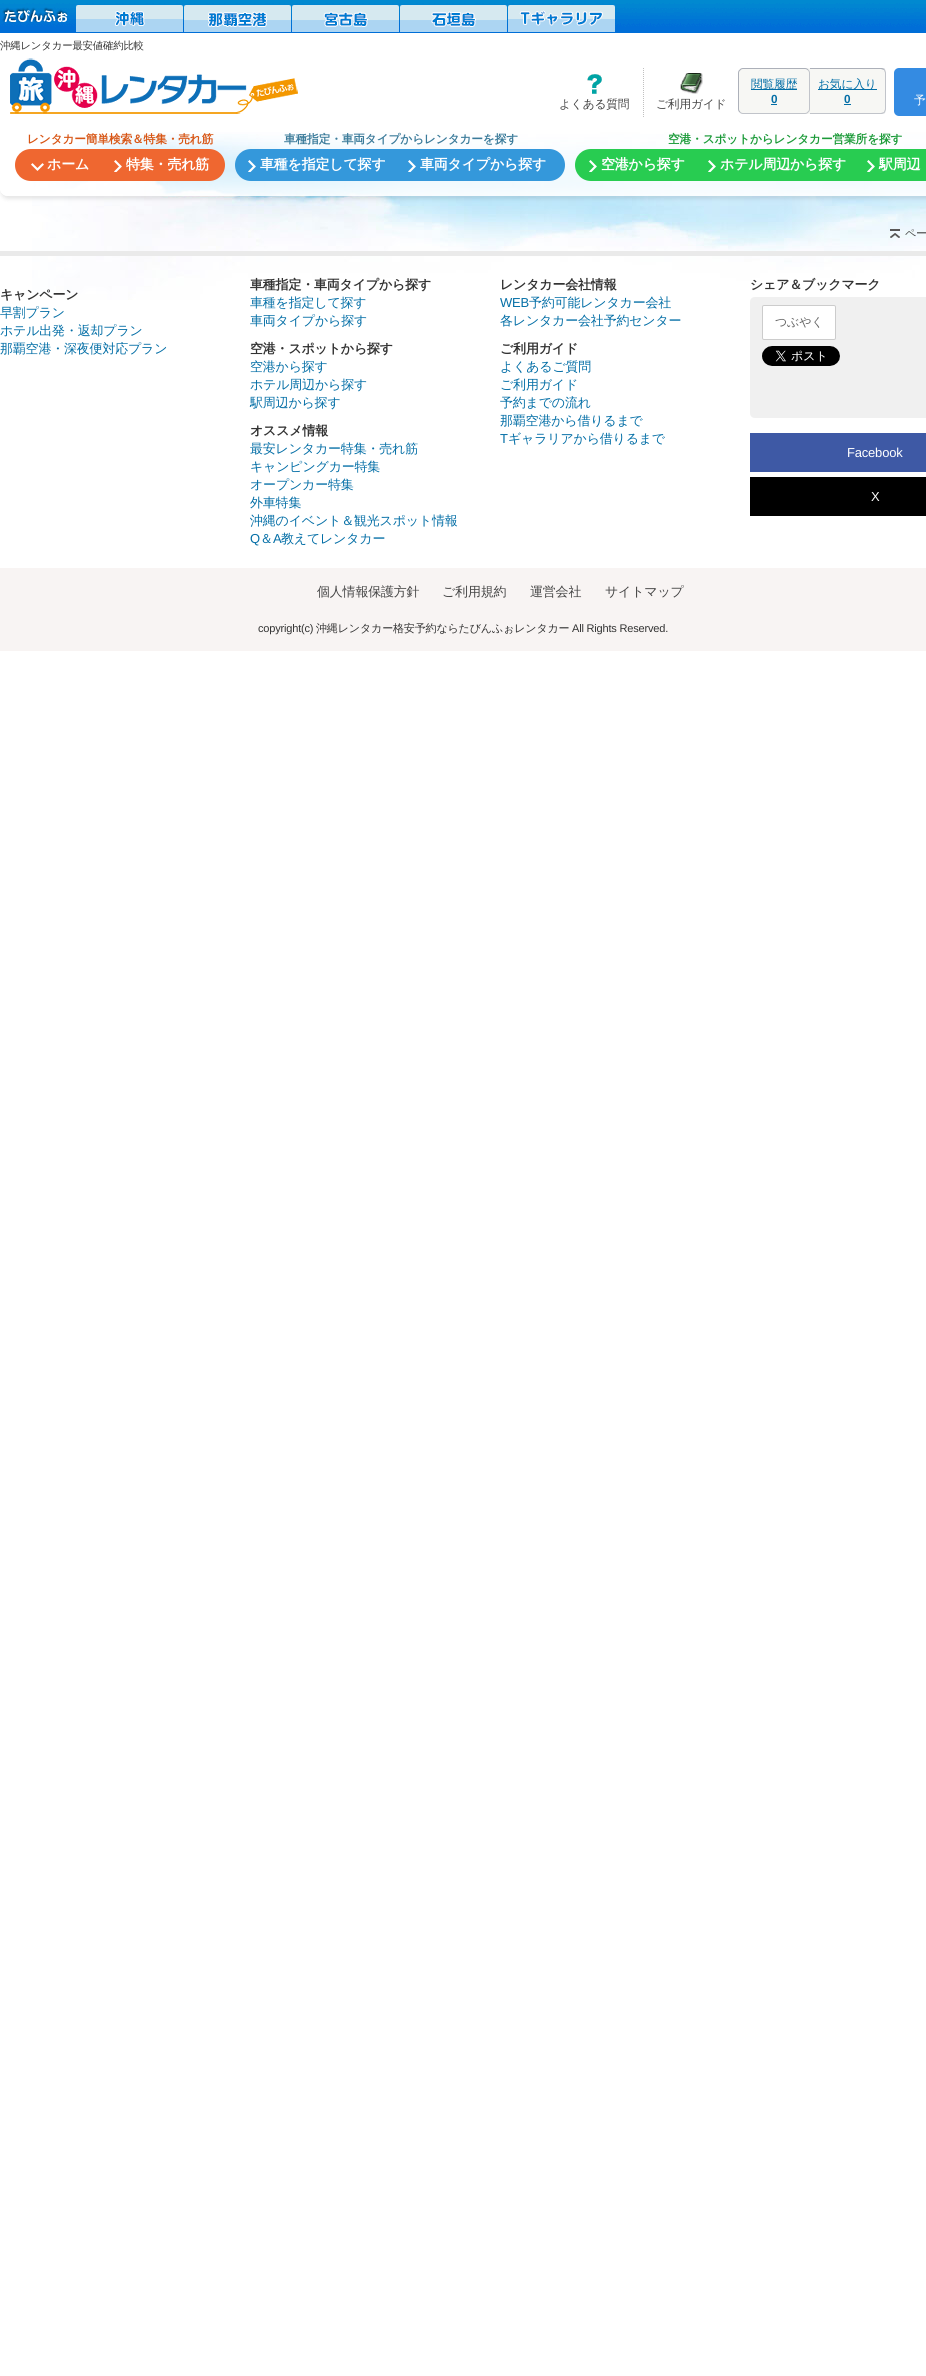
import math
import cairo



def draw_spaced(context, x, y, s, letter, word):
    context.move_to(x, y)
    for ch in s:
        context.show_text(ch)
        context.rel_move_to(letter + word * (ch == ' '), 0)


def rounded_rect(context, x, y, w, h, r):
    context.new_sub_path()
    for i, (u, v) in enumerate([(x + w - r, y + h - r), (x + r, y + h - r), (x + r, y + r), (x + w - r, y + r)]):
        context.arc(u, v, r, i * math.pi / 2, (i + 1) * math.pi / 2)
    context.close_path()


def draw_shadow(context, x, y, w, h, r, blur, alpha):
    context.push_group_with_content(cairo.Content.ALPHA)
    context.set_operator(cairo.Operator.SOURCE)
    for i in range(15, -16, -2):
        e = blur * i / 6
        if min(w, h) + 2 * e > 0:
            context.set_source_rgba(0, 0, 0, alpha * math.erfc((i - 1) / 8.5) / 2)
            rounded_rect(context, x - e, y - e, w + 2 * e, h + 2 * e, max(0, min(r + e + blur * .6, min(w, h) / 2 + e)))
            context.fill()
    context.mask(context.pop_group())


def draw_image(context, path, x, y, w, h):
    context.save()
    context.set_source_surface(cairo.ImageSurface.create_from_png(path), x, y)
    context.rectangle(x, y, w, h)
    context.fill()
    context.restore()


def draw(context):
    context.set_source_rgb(1, 1, 1)
    context.paint()
    draw_image(context, "images/1.png", 32, 132, 894, 168)
    draw_image(context, "images/2.png", 0, 0, 926, 33)
    draw_image(context, "images/3.png", 2, 7, 66, 16)
    draw_image(context, "images/4.png", 76, 5, 107, 27)
    draw_image(context, "images/5.png", 184, 5, 107, 27)
    draw_image(context, "images/6.png", 292, 5, 107, 27)
    draw_image(context, "images/7.png", 400, 5, 107, 27)
    draw_image(context, "images/8.png", 508, 5, 107, 27)
    draw_image(context, "images/9.png", 10, 58, 288, 56)
    context.save()
    context.set_fill_rule(cairo.FillRule.EVEN_ODD)
    context.new_path()
    context.move_to(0, 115)
    context.line_to(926, 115)
    context.line_to(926, 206)
    context.line_to(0, 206)
    context.close_path()
    context.move_to(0, 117)
    context.line_to(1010, 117)
    context.line_to(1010, 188)
    context.curve_to(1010, 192.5, 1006.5, 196, 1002, 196)
    context.line_to(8, 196)
    context.curve_to(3.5, 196, 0, 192.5, 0, 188)
    context.close_path()
    context.clip()
    context.set_source_rgb(0, 0, 0)
    draw_shadow(context, 1, 122, 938, 77, 7, 2, 0.1)
    context.restore()
    context.new_path()
    context.move_to(643.5, 68)
    context.line_to(643.5, 117)
    context.set_source_rgb(192 / 255, 192 / 255, 192 / 255)
    context.set_line_width(1)
    context.set_dash([1, 1])
    context.stroke()
    draw_image(context, "images/10.png", 587, 74, 15, 20)
    draw_image(context, "images/11.png", 680, 73, 23, 21)
    context.set_source_rgb(247 / 255, 247 / 255, 244 / 255)
    rounded_rect(context, 738, 68, 148, 46, 5)
    context.fill()
    context.save()
    rounded_rect(context, 738, 68, 148, 46, 5)
    context.clip()
    context.new_path()
    context.move_to(808, 70)
    context.curve_to(809, 70.5, 809.5, 72, 809.5, 73)
    context.line_to(809.5, 109)
    context.curve_to(809.5, 110, 809, 111.5, 808, 112)
    context.curve_to(807.5, 113, 806, 113.5, 805, 113.5)
    context.line_to(743, 113.5)
    context.curve_to(742, 113.5, 740.5, 113, 740, 112)
    context.set_source_rgb(193 / 255, 196 / 255, 202 / 255)
    context.set_dash([])
    context.stroke()
    context.new_path()
    context.move_to(740, 112)
    context.curve_to(739, 111.5, 738.5, 110, 738.5, 109)
    context.line_to(738.5, 73)
    context.curve_to(738.5, 72, 739, 70.5, 740, 70)
    context.curve_to(740.5, 69, 742, 68.5, 743, 68.5)
    context.line_to(805, 68.5)
    context.curve_to(806, 68.5, 807.5, 69, 808, 70)
    context.set_source_rgb(172 / 255, 176 / 255, 185 / 255)
    context.stroke()
    context.restore()
    context.set_source_rgb(3 / 255, 110 / 255, 166 / 255)
    context.rectangle(751, 89, 46, 1)
    context.fill()
    context.rectangle(771, 104, 6, 1)
    context.fill()
    context.set_source_rgb(172 / 255, 176 / 255, 185 / 255)
    context.new_path()
    context.move_to(810, 68)
    context.line_to(882, 68)
    context.line_to(885, 69)
    context.line_to(884, 70)
    context.line_to(881, 69)
    context.line_to(810, 69)
    context.close_path()
    context.fill()
    context.set_source_rgb(193 / 255, 196 / 255, 202 / 255)
    context.new_path()
    context.move_to(885, 69)
    context.line_to(884, 70)
    context.curve_to(884, 71, 885, 72, 885, 73)
    context.line_to(885, 109)
    context.curve_to(885, 110, 884, 111, 884, 112)
    context.line_to(885, 113)
    context.curve_to(885, 112, 886, 110, 886, 109)
    context.line_to(886, 73)
    context.curve_to(886, 72, 885, 70, 885, 69)
    context.close_path()
    context.fill()
    context.new_path()
    context.move_to(885, 113)
    context.line_to(884, 112)
    context.line_to(881, 113)
    context.line_to(810, 113)
    context.line_to(810, 114)
    context.line_to(882, 114)
    context.close_path()
    context.fill()
    context.set_source_rgb(3 / 255, 110 / 255, 166 / 255)
    context.rectangle(818, 89, 59, 1)
    context.fill()
    context.rectangle(844, 104, 7, 1)
    context.fill()
    context.set_source_rgb(52 / 255, 139 / 255, 226 / 255)
    rounded_rect(context, 894, 68, 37, 48, 5)
    context.fill()
    gradient = cairo.LinearGradient(505, 117, 505, 196)
    gradient.add_color_stop_rgba(0, 1, 1, 1, 0)
    gradient.add_color_stop_rgba(1, 1, 1, 1, 0.9)
    context.set_source(gradient)
    context.new_path()
    context.move_to(0, 117)
    context.line_to(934, 117)
    context.line_to(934, 188)
    context.curve_to(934, 192.5, 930.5, 196, 926, 196)
    context.line_to(8, 196)
    context.curve_to(3.5, 196, 0, 192.5, 0, 188)
    context.close_path()
    context.fill()
    context.set_source_rgb(239 / 255, 103 / 255, 48 / 255)
    context.new_path()
    context.move_to(31, 149)
    context.line_to(105, 149)
    context.line_to(105, 181)
    context.line_to(31, 181)
    context.curve_to(22, 181, 15, 174, 15, 165)
    context.curve_to(15, 156, 22, 149, 31, 149)
    context.close_path()
    context.fill()
    draw_image(context, "images/12.png", 31, 163, 13, 8)
    context.new_path()
    context.move_to(105, 149)
    context.line_to(209, 149)
    context.curve_to(218, 149, 225, 156, 225, 165)
    context.curve_to(225, 174, 218, 181, 209, 181)
    context.line_to(105, 181)
    context.close_path()
    context.fill()
    draw_image(context, "images/13.png", 114, 160, 8, 12)
    context.set_source_rgb(52 / 255, 152 / 255, 219 / 255)
    context.new_path()
    context.move_to(251, 149)
    context.line_to(395, 149)
    context.line_to(395, 181)
    context.line_to(251, 181)
    context.curve_to(242, 181, 235, 174, 235, 165)
    context.curve_to(235, 156, 242, 149, 251, 149)
    context.close_path()
    context.fill()
    draw_image(context, "images/14.png", 248, 160, 8, 12)
    context.new_path()
    context.move_to(395, 149)
    context.line_to(549, 149)
    context.curve_to(558, 149, 565, 156, 565, 165)
    context.curve_to(565, 174, 558, 181, 549, 181)
    context.line_to(395, 181)
    context.close_path()
    context.fill()
    draw_image(context, "images/14.png", 408, 160, 8, 12)
    context.set_source_rgb(40 / 255, 204 / 255, 81 / 255)
    context.new_path()
    context.move_to(591, 149)
    context.line_to(695, 149)
    context.line_to(695, 181)
    context.line_to(591, 181)
    context.curve_to(582, 181, 575, 174, 575, 165)
    context.curve_to(575, 156, 582, 149, 591, 149)
    context.close_path()
    context.fill()
    draw_image(context, "images/15.png", 589, 160, 8, 12)
    context.rectangle(695, 149, 231, 32)
    context.fill()
    draw_image(context, "images/15.png", 708, 160, 8, 12)
    draw_image(context, "images/15.png", 867, 160, 8, 12)
    draw_image(context, "images/16.png", 890, 229, 10, 9)
    context.set_source_rgb(234 / 255, 234 / 255, 234 / 255)
    context.rectangle(0, 251, 926, 5)
    context.fill()
    context.set_source_rgb(240 / 255, 240 / 255, 240 / 255)
    context.new_path()
    context.move_to(755, 297)
    context.line_to(926, 297)
    context.line_to(926, 418)
    context.line_to(755, 418)
    context.curve_to(752, 418, 750, 416, 750, 413)
    context.line_to(750, 302)
    context.curve_to(750, 299, 752, 297, 755, 297)
    context.close_path()
    context.fill()
    context.set_source_rgb(1, 1, 1)
    rounded_rect(context, 762.5, 305.5, 73, 34, 1.5)
    context.fill_preserve()
    context.set_source_rgb(204 / 255, 204 / 255, 204 / 255)
    context.set_dash([])
    context.stroke()
    draw_image(context, "images/17.png", 762, 346, 78, 20)
    context.set_source_rgb(62 / 255, 89 / 255, 165 / 255)
    context.rectangle(750, 433, 176, 39)
    context.fill()
    context.set_source_rgb(0, 0, 0)
    context.rectangle(750, 477, 176, 39)
    context.fill()
    context.set_source_rgb(248 / 255, 244 / 255, 243 / 255)
    context.rectangle(0, 568, 926, 83)
    context.fill()
    context.select_font_face("WenQuanYi Zen Hei Medium")
    context.set_font_size(10.4)
    context.set_source_rgb(51 / 255, 51 / 255, 51 / 255)
    draw_spaced(context, 0, 49, "沖縄レンタカー最安値確約比較", -0.2, 0)
    context.set_font_size(11.75)
    context.set_source_rgb(68 / 255, 68 / 255, 68 / 255)
    draw_spaced(context, 559, 108, "よくある質問", -0.2, 0)
    draw_spaced(context, 656, 108, "ご利用ガイド", -0.2, 0)
    context.set_source_rgb(3 / 255, 110 / 255, 166 / 255)
    draw_spaced(context, 751, 88, "閲覧履歴", -0.2, 0)
    context.select_font_face("Liberation Sans", cairo.FontSlant.NORMAL, cairo.FontWeight.BOLD)
    draw_spaced(context, 771, 103, "0", -0.2, 0)
    context.select_font_face("WenQuanYi Zen Hei Medium")
    draw_spaced(context, 818, 88, "お気に入り", -0.2, 0)
    context.select_font_face("Liberation Sans", cairo.FontSlant.NORMAL, cairo.FontWeight.BOLD)
    draw_spaced(context, 844, 103, "0", -0.2, 0)
    context.select_font_face("WenQuanYi Zen Hei Medium")
    context.set_source_rgb(1, 1, 1)
    draw_spaced(context, 914, 104, "予", -0.2, 0)
    context.select_font_face("WenQuanYi Zen Hei", cairo.FontSlant.NORMAL, cairo.FontWeight.BOLD)
    context.set_source_rgb(216 / 255, 85 / 255, 20 / 255)
    draw_spaced(context, 27, 143, "レンタカー簡単検索＆特集・売れ筋", -0.2, 0)
    context.set_font_size(14)
    context.set_source_rgb(1, 1, 1)
    draw_spaced(context, 47, 169, "ホーム", -0.2, 0)
    draw_spaced(context, 126, 169, "特集・売れ筋", -0.2, 0)
    context.set_font_size(11.75)
    context.set_source_rgb(59 / 255, 123 / 255, 154 / 255)
    draw_spaced(context, 284, 143, "車種指定・車両タイプからレンタカーを探す", -0.2, 0)
    context.set_font_size(14)
    context.set_source_rgb(1, 1, 1)
    draw_spaced(context, 260, 169, "車種を指定して探す", -0.2, 0)
    draw_spaced(context, 420, 169, "車両タイプから探す", -0.2, 0)
    context.set_font_size(11.75)
    context.set_source_rgb(27 / 255, 154 / 255, 56 / 255)
    draw_spaced(context, 668, 143, "空港・スポットからレンタカー営業所を探す", -0.2, 0)
    context.set_font_size(14)
    context.set_source_rgb(1, 1, 1)
    draw_spaced(context, 601, 169, "空港から探す", -0.2, 0)
    draw_spaced(context, 720, 169, "ホテル周辺から探す", -0.2, 0)
    draw_spaced(context, 879, 169, "駅周辺", -0.2, 0)
    context.select_font_face("WenQuanYi Zen Hei Medium")
    context.set_font_size(11.05)
    context.set_source_rgb(68 / 255, 68 / 255, 68 / 255)
    draw_spaced(context, 905, 237, "ペー", -0.2, 0)
    context.select_font_face("WenQuanYi Zen Hei", cairo.FontSlant.NORMAL, cairo.FontWeight.BOLD)
    context.set_font_size(13)
    context.set_source_rgb(51 / 255, 51 / 255, 51 / 255)
    draw_spaced(context, 0, 299, "キャンペーン", -0.2, 0)
    context.select_font_face("WenQuanYi Zen Hei Medium")
    context.set_source_rgb(3 / 255, 110 / 255, 166 / 255)
    draw_spaced(context, 0, 317, "早割プラン", -0.2, 0)
    draw_spaced(context, 0, 335, "ホテル出発・返却プラン", -0.2, 0)
    draw_spaced(context, 0, 353, "那覇空港・深夜便対応プラン", -0.2, 0)
    context.select_font_face("WenQuanYi Zen Hei", cairo.FontSlant.NORMAL, cairo.FontWeight.BOLD)
    context.set_source_rgb(51 / 255, 51 / 255, 51 / 255)
    draw_spaced(context, 250, 289, "車種指定・車両タイプから探す", -0.2, 0)
    context.select_font_face("WenQuanYi Zen Hei Medium")
    context.set_source_rgb(3 / 255, 110 / 255, 166 / 255)
    draw_spaced(context, 250, 307, "車種を指定して探す", -0.2, 0)
    draw_spaced(context, 250, 325, "車両タイプから探す", -0.2, 0)
    context.select_font_face("WenQuanYi Zen Hei", cairo.FontSlant.NORMAL, cairo.FontWeight.BOLD)
    context.set_source_rgb(51 / 255, 51 / 255, 51 / 255)
    draw_spaced(context, 250, 353, "空港・スポットから探す", -0.2, 0)
    context.select_font_face("WenQuanYi Zen Hei Medium")
    context.set_source_rgb(3 / 255, 110 / 255, 166 / 255)
    draw_spaced(context, 250, 371, "空港から探す", -0.2, 0)
    draw_spaced(context, 250, 389, "ホテル周辺から探す", -0.2, 0)
    draw_spaced(context, 250, 407, "駅周辺から探す", -0.2, 0)
    context.select_font_face("WenQuanYi Zen Hei", cairo.FontSlant.NORMAL, cairo.FontWeight.BOLD)
    context.set_source_rgb(51 / 255, 51 / 255, 51 / 255)
    draw_spaced(context, 250, 435, "オススメ情報", -0.2, 0)
    context.select_font_face("WenQuanYi Zen Hei Medium")
    context.set_source_rgb(3 / 255, 110 / 255, 166 / 255)
    draw_spaced(context, 250, 453, "最安レンタカー特集・売れ筋", -0.2, 0)
    draw_spaced(context, 250, 471, "キャンピングカー特集", -0.2, 0)
    draw_spaced(context, 250, 489, "オープンカー特集", -0.2, 0)
    draw_spaced(context, 250, 507, "外車特集", -0.2, 0)
    draw_spaced(context, 250, 525, "沖縄のイベント＆観光スポット情報", -0.2, 0)
    context.select_font_face("Liberation Sans")
    draw_spaced(context, 250, 543, "Q", -0.2, 0)
    context.select_font_face("WenQuanYi Zen Hei Medium")
    draw_spaced(context, 260, 543, "＆", -0.2, 0)
    context.select_font_face("Liberation Sans")
    draw_spaced(context, 273, 543, "A", -0.2, 0)
    context.select_font_face("WenQuanYi Zen Hei Medium")
    draw_spaced(context, 281, 543, "教えてレンタカー", -0.2, 0)
    context.select_font_face("WenQuanYi Zen Hei", cairo.FontSlant.NORMAL, cairo.FontWeight.BOLD)
    context.set_source_rgb(51 / 255, 51 / 255, 51 / 255)
    draw_spaced(context, 500, 289, "レンタカー会社情報", -0.2, 0)
    context.select_font_face("Liberation Sans")
    context.set_source_rgb(3 / 255, 110 / 255, 166 / 255)
    draw_spaced(context, 500, 307, "WEB", -0.2, 0)
    context.select_font_face("WenQuanYi Zen Hei Medium")
    draw_spaced(context, 529, 307, "予約可能レンタカー会社", -0.2, 0)
    draw_spaced(context, 500, 325, "各レンタカー会社予約センター", -0.2, 0)
    context.select_font_face("WenQuanYi Zen Hei", cairo.FontSlant.NORMAL, cairo.FontWeight.BOLD)
    context.set_source_rgb(51 / 255, 51 / 255, 51 / 255)
    draw_spaced(context, 500, 353, "ご利用ガイド", -0.2, 0)
    context.select_font_face("WenQuanYi Zen Hei Medium")
    context.set_source_rgb(3 / 255, 110 / 255, 166 / 255)
    draw_spaced(context, 500, 371, "よくあるご質問", -0.2, 0)
    draw_spaced(context, 500, 389, "ご利用ガイド", -0.2, 0)
    draw_spaced(context, 500, 407, "予約までの流れ", -0.2, 0)
    draw_spaced(context, 500, 425, "那覇空港から借りるまで", -0.2, 0)
    context.select_font_face("Liberation Sans")
    draw_spaced(context, 500, 443, "T", -0.2, 0)
    context.select_font_face("WenQuanYi Zen Hei Medium")
    draw_spaced(context, 508, 443, "ギャラリアから借りるまで", -0.2, 0)
    context.select_font_face("WenQuanYi Zen Hei", cairo.FontSlant.NORMAL, cairo.FontWeight.BOLD)
    context.set_source_rgb(51 / 255, 51 / 255, 51 / 255)
    draw_spaced(context, 750, 289, "シェア＆ブックマーク", -0.2, 0)
    context.select_font_face("WenQuanYi Zen Hei Medium")
    context.set_font_size(12)
    context.set_source_rgb(102 / 255, 102 / 255, 102 / 255)
    draw_spaced(context, 775, 326, "つぶやく", -0.2, 0)
    context.select_font_face("Liberation Sans")
    context.set_font_size(13)
    context.set_source_rgb(1, 1, 1)
    draw_spaced(context, 847, 457, "Facebook", -0.2, 0)
    draw_spaced(context, 871, 501, "X", -0.2, 0)
    context.select_font_face("WenQuanYi Zen Hei Medium")
    context.set_source_rgb(68 / 255, 68 / 255, 68 / 255)
    draw_spaced(context, 317, 596, "個人情報保護方針", -0.2, 0)
    draw_spaced(context, 442, 596, "ご利用規約", -0.2, 0)
    draw_spaced(context, 530, 596, "運営会社", -0.2, 0)
    draw_spaced(context, 605, 596, "サイトマップ", -0.2, 0)
    context.select_font_face("Liberation Sans")
    context.set_font_size(11.05)
    context.set_source_rgb(51 / 255, 51 / 255, 51 / 255)
    draw_spaced(context, 258, 632, "copyright(c)", -0.2, 0)
    context.select_font_face("WenQuanYi Zen Hei Medium")
    draw_spaced(context, 316, 632, "沖縄レンタカー格安予約ならたびんふぉレンタカー", -0.2, 0)
    context.select_font_face("Liberation Sans")
    draw_spaced(context, 572, 632, "All Rights Reserved.", -0.2, 0)


surface = cairo.ImageSurface(cairo.Format.RGB24, 926, 2376)
context = cairo.Context(surface)
options = cairo.FontOptions()
options.set_hint_metrics(cairo.HintMetrics.OFF)
options.set_hint_style(cairo.HintStyle.NONE)
context.set_font_options(options)
context.set_miter_limit(4)
draw(context)
surface.write_to_png("out.png")
